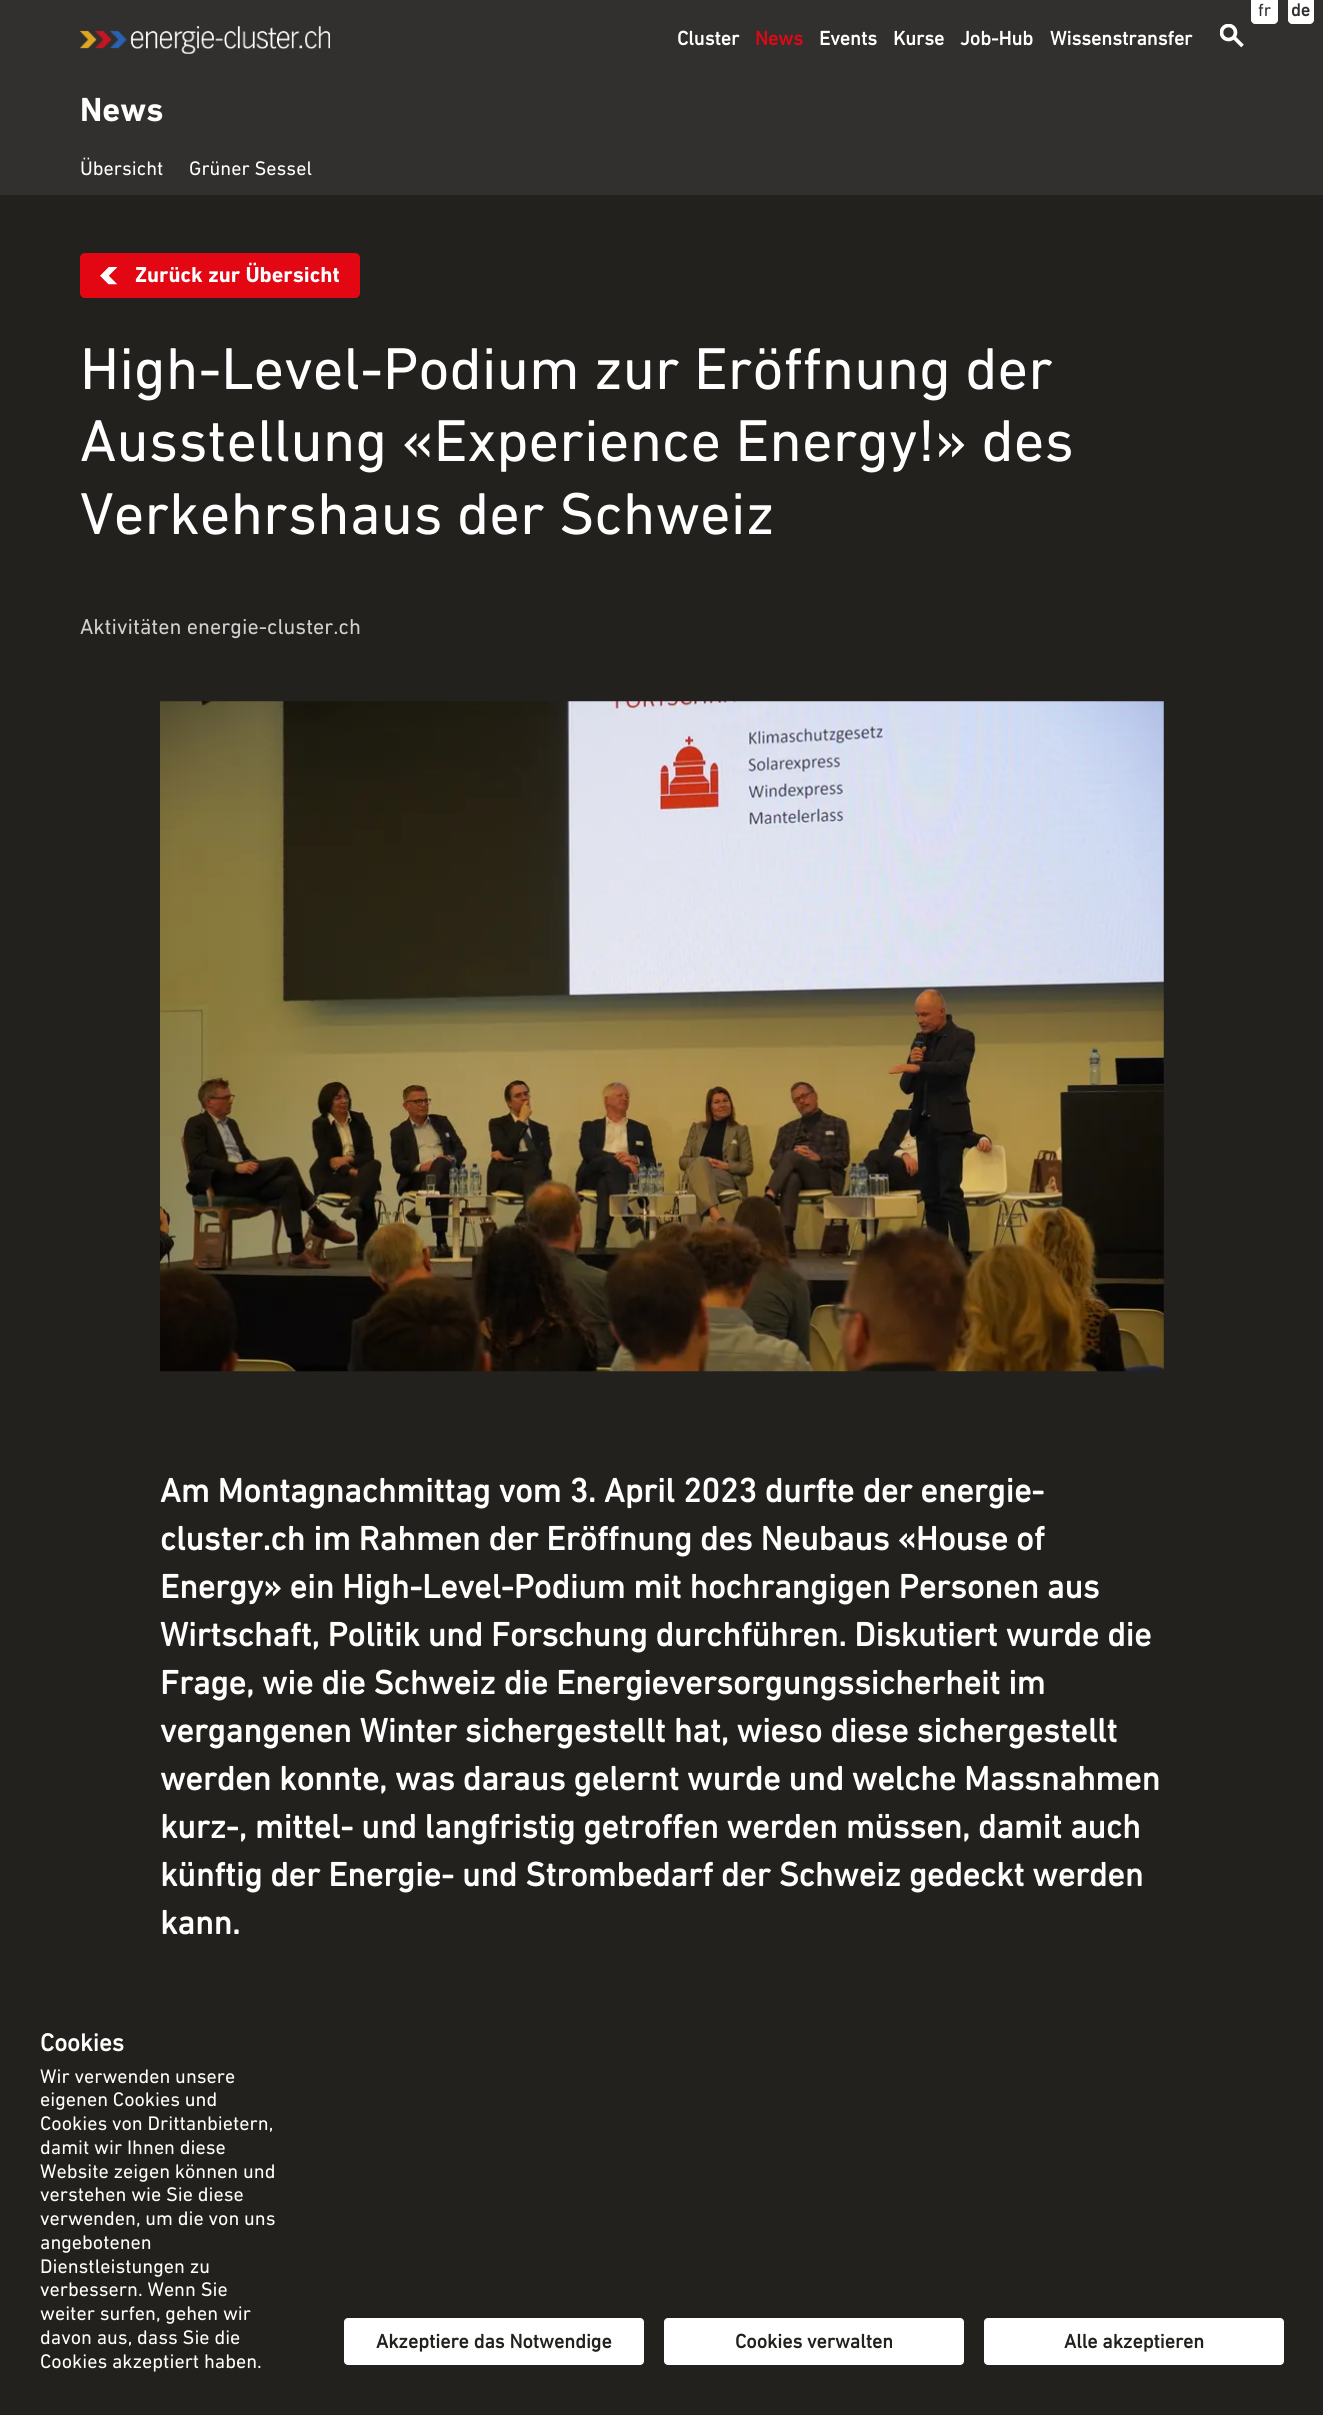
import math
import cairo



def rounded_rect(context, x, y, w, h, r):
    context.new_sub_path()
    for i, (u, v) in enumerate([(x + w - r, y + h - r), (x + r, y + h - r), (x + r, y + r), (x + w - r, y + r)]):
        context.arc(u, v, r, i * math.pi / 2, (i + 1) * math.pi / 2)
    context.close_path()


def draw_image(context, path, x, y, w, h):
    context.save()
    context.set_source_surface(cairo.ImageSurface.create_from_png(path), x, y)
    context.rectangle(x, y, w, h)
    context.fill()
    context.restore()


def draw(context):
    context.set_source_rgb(34 / 255, 33 / 255, 29 / 255)
    context.paint()
    context.set_source_rgb(49 / 255, 48 / 255, 46 / 255)
    context.rectangle(0, 0, 1323, 195)
    context.fill()
    context.set_source_rgb(1, 1, 1)
    context.new_path()
    context.move_to(1251, 0)
    context.line_to(1278, 0)
    context.line_to(1278, 20)
    context.curve_to(1278, 22, 1276, 24, 1274, 24)
    context.line_to(1255, 24)
    context.curve_to(1253, 24, 1251, 22, 1251, 20)
    context.close_path()
    context.fill()
    context.new_path()
    context.move_to(1288, 0)
    context.line_to(1314, 0)
    context.line_to(1314, 20)
    context.curve_to(1314, 22, 1312, 24, 1310, 24)
    context.line_to(1292, 24)
    context.curve_to(1290, 24, 1288, 22, 1288, 20)
    context.close_path()
    context.fill()
    draw_image(context, "images/1.png", 80, 26, 250, 28)
    context.new_path()
    context.move_to(1234, 37.5)
    context.line_to(1242.5, 46)
    context.set_line_width(3.7)
    context.stroke()
    context.save()
    context.rectangle(1220, 24, 24, 24)
    context.clip()
    context.arc(1228.5, 32.5, 7, 0, 2 * math.pi)
    context.stroke()
    context.restore()
    context.set_source_rgb(227 / 255, 6 / 255, 19 / 255)
    rounded_rect(context, 80, 253, 280, 45, 5)
    context.fill()
    draw_image(context, "images/2.png", 100, 267, 18, 18)
    draw_image(context, "images/3.png", 160, 701, 1004, 671)
    context.set_source_rgb(1, 1, 1)
    rounded_rect(context, 344, 2318, 300, 47, 4)
    context.fill()
    rounded_rect(context, 664, 2318, 300, 47, 4)
    context.fill()
    rounded_rect(context, 984, 2318, 300, 47, 4)
    context.fill()
    context.select_font_face("DIN Next")
    context.set_font_size(18)
    context.set_source_rgb(49 / 255, 48 / 255, 46 / 255)
    context.move_to(1258, 16)
    context.show_text("fr")
    context.select_font_face("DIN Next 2", cairo.FontSlant.NORMAL, cairo.FontWeight.BOLD)
    context.move_to(1291, 16)
    context.show_text("de")
    context.set_font_size(20)
    context.set_source_rgb(1, 1, 1)
    context.move_to(677, 45)
    context.show_text("Cluster")
    context.set_source_rgb(227 / 255, 6 / 255, 19 / 255)
    context.move_to(755, 45)
    context.show_text("News")
    context.set_source_rgb(1, 1, 1)
    context.move_to(819, 45)
    context.show_text("Events")
    context.move_to(893, 45)
    context.show_text("Kurse")
    context.move_to(960, 45)
    context.show_text("Job-Hub")
    context.move_to(1050, 45)
    context.show_text("Wissenstransfer")
    context.select_font_face("DIN Next", cairo.FontSlant.NORMAL, cairo.FontWeight.BOLD)
    context.set_font_size(34)
    context.move_to(80, 121)
    context.show_text("News")
    context.select_font_face("DIN Next")
    context.set_font_size(20)
    context.move_to(80, 175)
    context.show_text("Übersicht")
    context.move_to(189, 175)
    context.show_text("Grüner Sessel")
    context.select_font_face("DIN Next", cairo.FontSlant.NORMAL, cairo.FontWeight.BOLD)
    context.set_font_size(22)
    context.move_to(135, 282)
    context.show_text("Zurück zur Übersicht")
    context.select_font_face("DIN Next")
    context.set_font_size(60)
    context.move_to(80, 389)
    context.show_text("High-Level-Podium zur Eröffnung der")
    context.move_to(80, 461)
    context.show_text("Ausstellung «Experience Energy!» des")
    context.move_to(80, 534)
    context.show_text("Verkehrshaus der Schweiz")
    context.set_font_size(22)
    context.set_source_rgb(208 / 255, 208 / 255, 208 / 255)
    context.move_to(80, 634)
    context.show_text("Aktivitäten energie-cluster.ch")
    context.select_font_face("DIN Next 2", cairo.FontSlant.NORMAL, cairo.FontWeight.BOLD)
    context.set_font_size(34)
    context.set_source_rgb(1, 1, 1)
    context.move_to(160, 1502)
    context.show_text("Am Montagnachmittag vom 3. April 2023 durfte der energie-")
    context.move_to(160, 1550)
    context.show_text("cluster.ch im Rahmen der Eröffnung des Neubaus «House of")
    context.move_to(160, 1598)
    context.show_text("Energy» ein High-Level-Podium mit hochrangigen Personen aus")
    context.move_to(160, 1646)
    context.show_text("Wirtschaft, Politik und Forschung durchführen. Diskutiert wurde die")
    context.move_to(160, 1694)
    context.show_text("Frage, wie die Schweiz die Energieversorgungssicherheit im")
    context.move_to(160, 1742)
    context.show_text("vergangenen Winter sichergestellt hat, wieso diese sichergestellt")
    context.move_to(160, 1790)
    context.show_text("werden konnte, was daraus gelernt wurde und welche Massnahmen")
    context.move_to(160, 1838)
    context.show_text("kurz-, mittel- und langfristig getroffen werden müssen, damit auch")
    context.move_to(160, 1886)
    context.show_text("künftig der Energie- und Strombedarf der Schweiz gedeckt werden")
    context.move_to(160, 1934)
    context.show_text("kann.")
    context.set_font_size(25)
    context.move_to(40, 2051)
    context.show_text("Cookies")
    context.select_font_face("DIN Next")
    context.set_font_size(20)
    context.move_to(40, 2083)
    context.show_text("Wir verwenden unsere")
    context.move_to(40, 2106)
    context.show_text("eigenen Cookies und")
    context.move_to(40, 2130)
    context.show_text("Cookies von Drittanbietern,")
    context.move_to(40, 2154)
    context.show_text("damit wir Ihnen diese")
    context.move_to(40, 2178)
    context.show_text("Website zeigen können und")
    context.move_to(40, 2201)
    context.show_text("verstehen wie Sie diese")
    context.move_to(40, 2225)
    context.show_text("verwenden, um die von uns")
    context.move_to(40, 2249)
    context.show_text("angebotenen")
    context.move_to(40, 2273)
    context.show_text("Dienstleistungen zu")
    context.move_to(40, 2296)
    context.show_text("verbessern. Wenn Sie")
    context.move_to(40, 2320)
    context.show_text("weiter surfen, gehen wir")
    context.move_to(40, 2344)
    context.show_text("davon aus, dass Sie die")
    context.move_to(40, 2368)
    context.show_text("Cookies akzeptiert haben.")
    context.select_font_face("DIN Next 2", cairo.FontSlant.NORMAL, cairo.FontWeight.BOLD)
    context.set_source_rgb(34 / 255, 33 / 255, 29 / 255)
    context.move_to(376, 2348)
    context.show_text("Akzeptiere das Notwendige")
    context.move_to(735, 2348)
    context.show_text("Cookies verwalten")
    context.move_to(1064, 2348)
    context.show_text("Alle akzeptieren")


surface = cairo.ImageSurface(cairo.Format.RGB24, 1323, 2415)
context = cairo.Context(surface)
options = cairo.FontOptions()
options.set_hint_metrics(cairo.HintMetrics.OFF)
options.set_hint_style(cairo.HintStyle.NONE)
context.set_font_options(options)
context.set_miter_limit(4)
draw(context)
surface.write_to_png("out.png")
